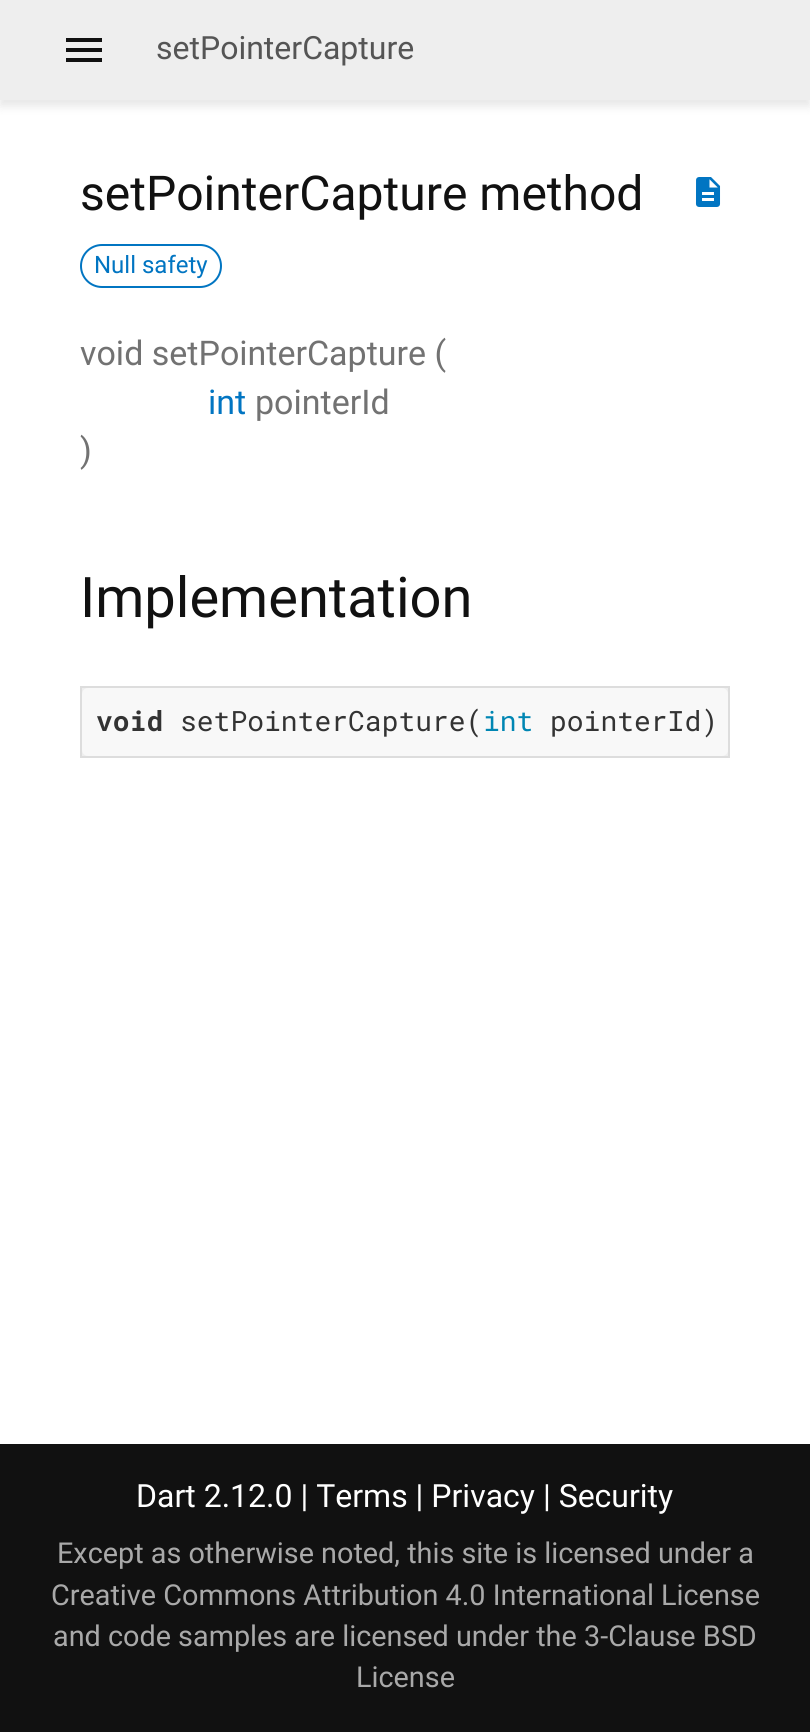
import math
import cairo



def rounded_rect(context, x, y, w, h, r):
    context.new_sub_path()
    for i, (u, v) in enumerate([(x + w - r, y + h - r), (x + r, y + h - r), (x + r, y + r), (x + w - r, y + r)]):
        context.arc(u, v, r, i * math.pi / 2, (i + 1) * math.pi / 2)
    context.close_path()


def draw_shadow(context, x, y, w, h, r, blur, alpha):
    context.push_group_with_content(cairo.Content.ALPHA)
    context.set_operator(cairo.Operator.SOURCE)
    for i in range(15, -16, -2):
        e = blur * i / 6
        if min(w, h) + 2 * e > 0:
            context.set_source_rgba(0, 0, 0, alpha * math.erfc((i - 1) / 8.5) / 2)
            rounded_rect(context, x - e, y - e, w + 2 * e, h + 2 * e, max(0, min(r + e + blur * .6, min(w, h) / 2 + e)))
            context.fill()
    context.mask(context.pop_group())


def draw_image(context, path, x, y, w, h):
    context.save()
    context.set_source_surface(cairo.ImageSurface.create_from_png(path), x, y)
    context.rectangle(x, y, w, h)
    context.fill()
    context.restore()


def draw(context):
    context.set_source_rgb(1, 1, 1)
    context.paint()
    context.set_source_rgb(0, 0, 0)
    draw_shadow(context, 0, 6, 810, 100, 0, 5, 0.1)
    context.set_source_rgb(238 / 255, 238 / 255, 238 / 255)
    context.rectangle(0, 0, 810, 100)
    context.fill()
    context.set_source_rgb(17 / 255, 17 / 255, 17 / 255)
    context.new_path()
    context.move_to(66, 62)
    context.line_to(102, 62)
    context.line_to(102, 58)
    context.line_to(66, 58)
    context.close_path()
    context.move_to(66, 52)
    context.line_to(102, 52)
    context.line_to(102, 48)
    context.line_to(66, 48)
    context.close_path()
    context.move_to(66, 38)
    context.line_to(66, 42)
    context.line_to(102, 42)
    context.line_to(102, 38)
    context.close_path()
    context.fill()
    rounded_rect(context, 81, 245, 140, 42, 21)
    context.set_source_rgb(1 / 255, 117 / 255, 194 / 255)
    context.stroke()
    draw_image(context, "images/1.png", 695, 177, 26, 30)
    context.set_source_rgb(238 / 255, 238 / 255, 238 / 255)
    context.rectangle(81, 687, 648, 70)
    context.fill_preserve()
    context.set_source_rgb(221 / 255, 221 / 255, 221 / 255)
    context.stroke()
    context.set_source_rgb(248 / 255, 248 / 255, 248 / 255)
    rounded_rect(context, 82, 688, 646, 68, 6)
    context.fill()
    context.set_source_rgb(17 / 255, 17 / 255, 17 / 255)
    context.rectangle(0, 1444, 810, 288)
    context.fill()
    context.select_font_face("Roboto")
    context.set_font_size(32)
    context.set_source_rgb(85 / 255, 85 / 255, 85 / 255)
    context.move_to(156, 59)
    context.show_text("setPointerCapture")
    context.set_font_size(48)
    context.set_source_rgb(17 / 255, 17 / 255, 17 / 255)
    context.move_to(80, 210)
    context.show_text("setPointerCapture method")
    context.set_font_size(24)
    context.set_source_rgb(1 / 255, 117 / 255, 194 / 255)
    context.move_to(94, 273)
    context.show_text("Null safety")
    context.set_font_size(34)
    context.set_source_rgb(114 / 255, 114 / 255, 114 / 255)
    context.move_to(80, 365)
    context.show_text("void setPointerCapture (")
    context.set_source_rgb(1 / 255, 117 / 255, 194 / 255)
    context.move_to(208, 414)
    context.show_text("int")
    context.set_source_rgb(114 / 255, 114 / 255, 114 / 255)
    context.move_to(255, 414)
    context.show_text("pointerId")
    context.move_to(80, 462)
    context.show_text(")")
    context.set_font_size(56)
    context.set_source_rgb(17 / 255, 17 / 255, 17 / 255)
    context.move_to(80, 617)
    context.show_text("Implementation")
    context.select_font_face("Roboto Mono", cairo.FontSlant.NORMAL, cairo.FontWeight.BOLD)
    context.set_font_size(28)
    context.set_source_rgb(51 / 255, 51 / 255, 51 / 255)
    context.move_to(96, 731)
    context.show_text("void")
    context.select_font_face("Roboto Mono")
    context.move_to(180, 731)
    context.show_text("setPointerCapture(")
    context.set_source_rgb(0, 134 / 255, 179 / 255)
    context.move_to(483, 731)
    context.show_text("int")
    context.set_source_rgb(51 / 255, 51 / 255, 51 / 255)
    context.move_to(550, 731)
    context.show_text("pointerId)")
    context.select_font_face("Roboto")
    context.set_font_size(32)
    context.set_source_rgb(1, 1, 1)
    context.move_to(136, 1507)
    context.show_text("Dart 2.12.0 | Terms | Privacy | Security")
    context.set_font_size(28.8)
    context.set_source_rgb(169 / 255, 169 / 255, 169 / 255)
    context.move_to(57, 1563)
    context.show_text("Except as otherwise noted, this site is licensed under a")
    context.move_to(51, 1605)
    context.show_text("Creative Commons Attribution 4.0 International License")
    context.move_to(53, 1646)
    context.show_text("and code samples are licensed under the")
    context.move_to(584, 1646)
    context.show_text("3-Clause BSD")
    context.move_to(356, 1687)
    context.show_text("License")


surface = cairo.ImageSurface(cairo.Format.RGB24, 810, 1732)
context = cairo.Context(surface)
options = cairo.FontOptions()
options.set_hint_metrics(cairo.HintMetrics.OFF)
options.set_hint_style(cairo.HintStyle.NONE)
context.set_font_options(options)
context.set_miter_limit(4)
draw(context)
surface.write_to_png("out.png")
